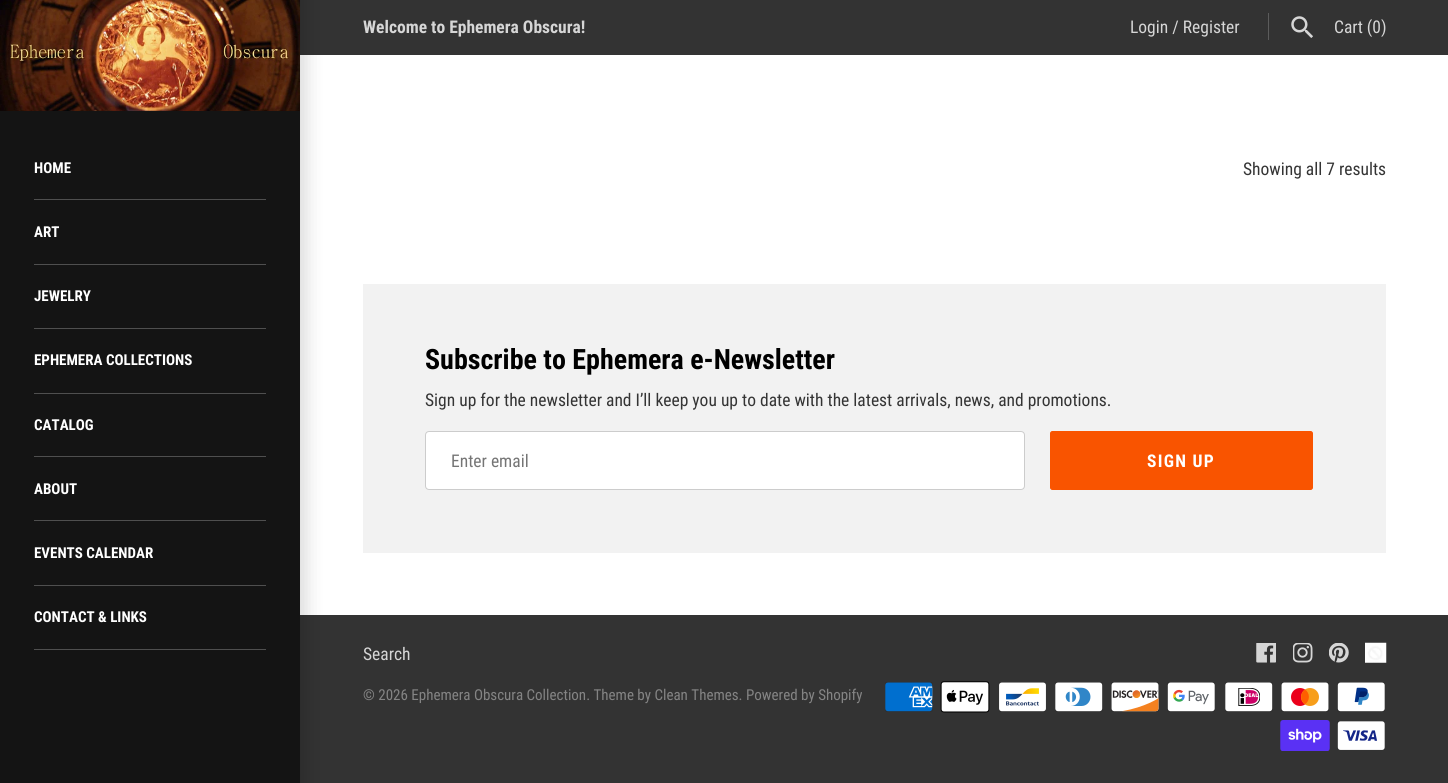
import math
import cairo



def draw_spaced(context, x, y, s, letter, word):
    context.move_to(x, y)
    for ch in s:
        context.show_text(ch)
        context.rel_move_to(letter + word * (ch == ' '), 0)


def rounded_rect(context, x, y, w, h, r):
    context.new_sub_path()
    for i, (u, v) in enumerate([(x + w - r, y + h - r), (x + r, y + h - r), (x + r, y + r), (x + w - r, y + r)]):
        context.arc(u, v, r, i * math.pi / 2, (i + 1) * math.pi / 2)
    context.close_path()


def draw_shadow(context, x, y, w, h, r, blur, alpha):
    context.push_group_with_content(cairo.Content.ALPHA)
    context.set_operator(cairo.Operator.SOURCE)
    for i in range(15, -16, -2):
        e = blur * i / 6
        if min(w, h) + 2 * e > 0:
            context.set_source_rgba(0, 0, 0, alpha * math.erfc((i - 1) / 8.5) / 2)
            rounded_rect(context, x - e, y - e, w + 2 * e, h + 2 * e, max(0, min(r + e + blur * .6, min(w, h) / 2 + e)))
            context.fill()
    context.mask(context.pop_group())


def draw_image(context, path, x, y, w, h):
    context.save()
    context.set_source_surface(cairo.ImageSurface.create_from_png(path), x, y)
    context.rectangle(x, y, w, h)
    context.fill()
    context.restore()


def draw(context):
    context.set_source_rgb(1, 1, 1)
    context.paint()
    context.set_source_rgb(51 / 255, 51 / 255, 51 / 255)
    context.rectangle(300, 0, 1148, 55)
    context.fill()
    context.set_source_rgb(92 / 255, 92 / 255, 92 / 255)
    context.rectangle(1268, 13, 1, 27)
    context.fill()
    draw_image(context, "images/1.png", 1291, 16, 22, 22)
    context.set_source_rgb(51 / 255, 51 / 255, 51 / 255)
    context.rectangle(300, 615, 1148, 168)
    context.fill()
    context.set_source_rgb(0, 0, 0)
    draw_shadow(context, -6, -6, 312, 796, 0, 9.5, 0.15)
    context.set_source_rgb(20 / 255, 20 / 255, 20 / 255)
    context.rectangle(0, 111, 300, 672)
    context.fill()
    draw_image(context, "images/2.png", 0, 0, 300, 111)
    context.set_source_rgb(79 / 255, 79 / 255, 79 / 255)
    context.rectangle(34, 199, 232, 1)
    context.fill()
    context.rectangle(34, 264, 232, 1)
    context.fill()
    context.rectangle(34, 328, 232, 1)
    context.fill()
    context.rectangle(34, 393, 232, 1)
    context.fill()
    context.rectangle(34, 456, 232, 1)
    context.fill()
    context.rectangle(34, 520, 232, 1)
    context.fill()
    context.rectangle(34, 585, 232, 1)
    context.fill()
    context.rectangle(34, 649, 232, 1)
    context.fill()
    context.set_source_rgb(242 / 255, 242 / 255, 242 / 255)
    context.rectangle(363, 284, 1023, 269)
    context.fill()
    context.set_source_rgb(1, 1, 1)
    rounded_rect(context, 425.5, 431.5, 599, 58, 3.5)
    context.fill_preserve()
    context.set_source_rgb(204 / 255, 204 / 255, 204 / 255)
    context.set_line_width(1)
    context.stroke()
    context.set_source_rgb(249 / 255, 84 / 255, 0)
    rounded_rect(context, 1050.5, 431.5, 262, 58, 2)
    context.fill_preserve()
    context.stroke()
    draw_image(context, "images/3.png", 1256, 643, 20, 20)
    draw_image(context, "images/4.png", 1293, 643, 20, 20)
    draw_image(context, "images/5.png", 1329, 643, 20, 20)
    draw_image(context, "images/6.png", 1365, 642, 22, 21)
    draw_image(context, "images/7.png", 885, 682, 48, 30)
    draw_image(context, "images/8.png", 940, 681, 50, 32)
    draw_image(context, "images/9.png", 999, 682, 47, 30)
    draw_image(context, "images/10.png", 1055, 682, 48, 30)
    draw_image(context, "images/11.png", 1111, 682, 48, 30)
    draw_image(context, "images/12.png", 1167, 682, 48, 30)
    draw_image(context, "images/13.png", 1225, 682, 48, 30)
    draw_image(context, "images/14.png", 1281, 682, 48, 30)
    draw_image(context, "images/15.png", 1337, 682, 48, 30)
    draw_image(context, "images/16.png", 1280, 720, 50, 31)
    draw_image(context, "images/17.png", 1337, 721, 48, 29)
    context.select_font_face("Roboto Condensed", cairo.FontSlant.NORMAL, cairo.FontWeight.BOLD)
    context.set_font_size(17.5)
    context.set_source_rgb(214 / 255, 214 / 255, 214 / 255)
    context.move_to(363, 33)
    context.show_text("Welcome to Ephemera Obscura!")
    context.select_font_face("Roboto Condensed")
    context.move_to(1130, 33)
    context.show_text("Login / Register")
    context.move_to(1334, 33)
    context.show_text("Cart (0)")
    context.select_font_face("Roboto Condensed", cairo.FontSlant.NORMAL, cairo.FontWeight.BOLD)
    context.set_font_size(15)
    context.set_source_rgb(1, 1, 1)
    context.move_to(34, 173)
    context.show_text("HOME")
    context.move_to(34, 237)
    context.show_text("ART")
    context.move_to(34, 301)
    context.show_text("JEWELRY")
    context.move_to(34, 365)
    context.show_text("EPHEMERA COLLECTIONS")
    context.move_to(34, 430)
    context.show_text("CATALOG")
    context.move_to(34, 494)
    context.show_text("ABOUT")
    context.move_to(34, 558)
    context.show_text("EVENTS CALENDAR")
    context.move_to(34, 622)
    context.show_text("CONTACT & LINKS")
    context.select_font_face("Roboto Condensed")
    context.set_font_size(17.5)
    context.set_source_rgb(52 / 255, 52 / 255, 52 / 255)
    context.move_to(1243, 175)
    context.show_text("Showing all 7 results")
    context.select_font_face("Roboto Condensed", cairo.FontSlant.NORMAL, cairo.FontWeight.BOLD)
    context.set_font_size(28)
    context.set_source_rgb(0, 0, 0)
    context.move_to(425, 369)
    context.show_text("Subscribe to Ephemera e-Newsletter")
    context.select_font_face("Roboto Condensed")
    context.set_font_size(17.5)
    context.set_source_rgb(52 / 255, 52 / 255, 52 / 255)
    context.move_to(425, 406)
    context.show_text("Sign up for the newsletter and I’ll keep you up to date with the latest arrivals, news, and promotions.")
    context.set_source_rgb(117 / 255, 117 / 255, 117 / 255)
    context.move_to(451, 467)
    context.show_text("Enter email")
    context.select_font_face("Roboto Condensed", cairo.FontSlant.NORMAL, cairo.FontWeight.BOLD)
    context.set_source_rgb(1, 1, 1)
    draw_spaced(context, 1147, 467, "SIGN UP", 1.25, 0)
    context.select_font_face("Roboto Condensed")
    context.set_source_rgb(214 / 255, 214 / 255, 214 / 255)
    context.move_to(363, 660)
    context.show_text("Search")
    context.set_font_size(15)
    context.set_source_rgb(132 / 255, 132 / 255, 132 / 255)
    context.move_to(363, 700)
    context.show_text("© 2026 Ephemera Obscura Collection. Theme by Clean Themes. Powered by Shopify")


surface = cairo.ImageSurface(cairo.Format.RGB24, 1448, 783)
context = cairo.Context(surface)
options = cairo.FontOptions()
options.set_hint_metrics(cairo.HintMetrics.OFF)
options.set_hint_style(cairo.HintStyle.NONE)
context.set_font_options(options)
context.set_miter_limit(4)
draw(context)
surface.write_to_png("out.png")
